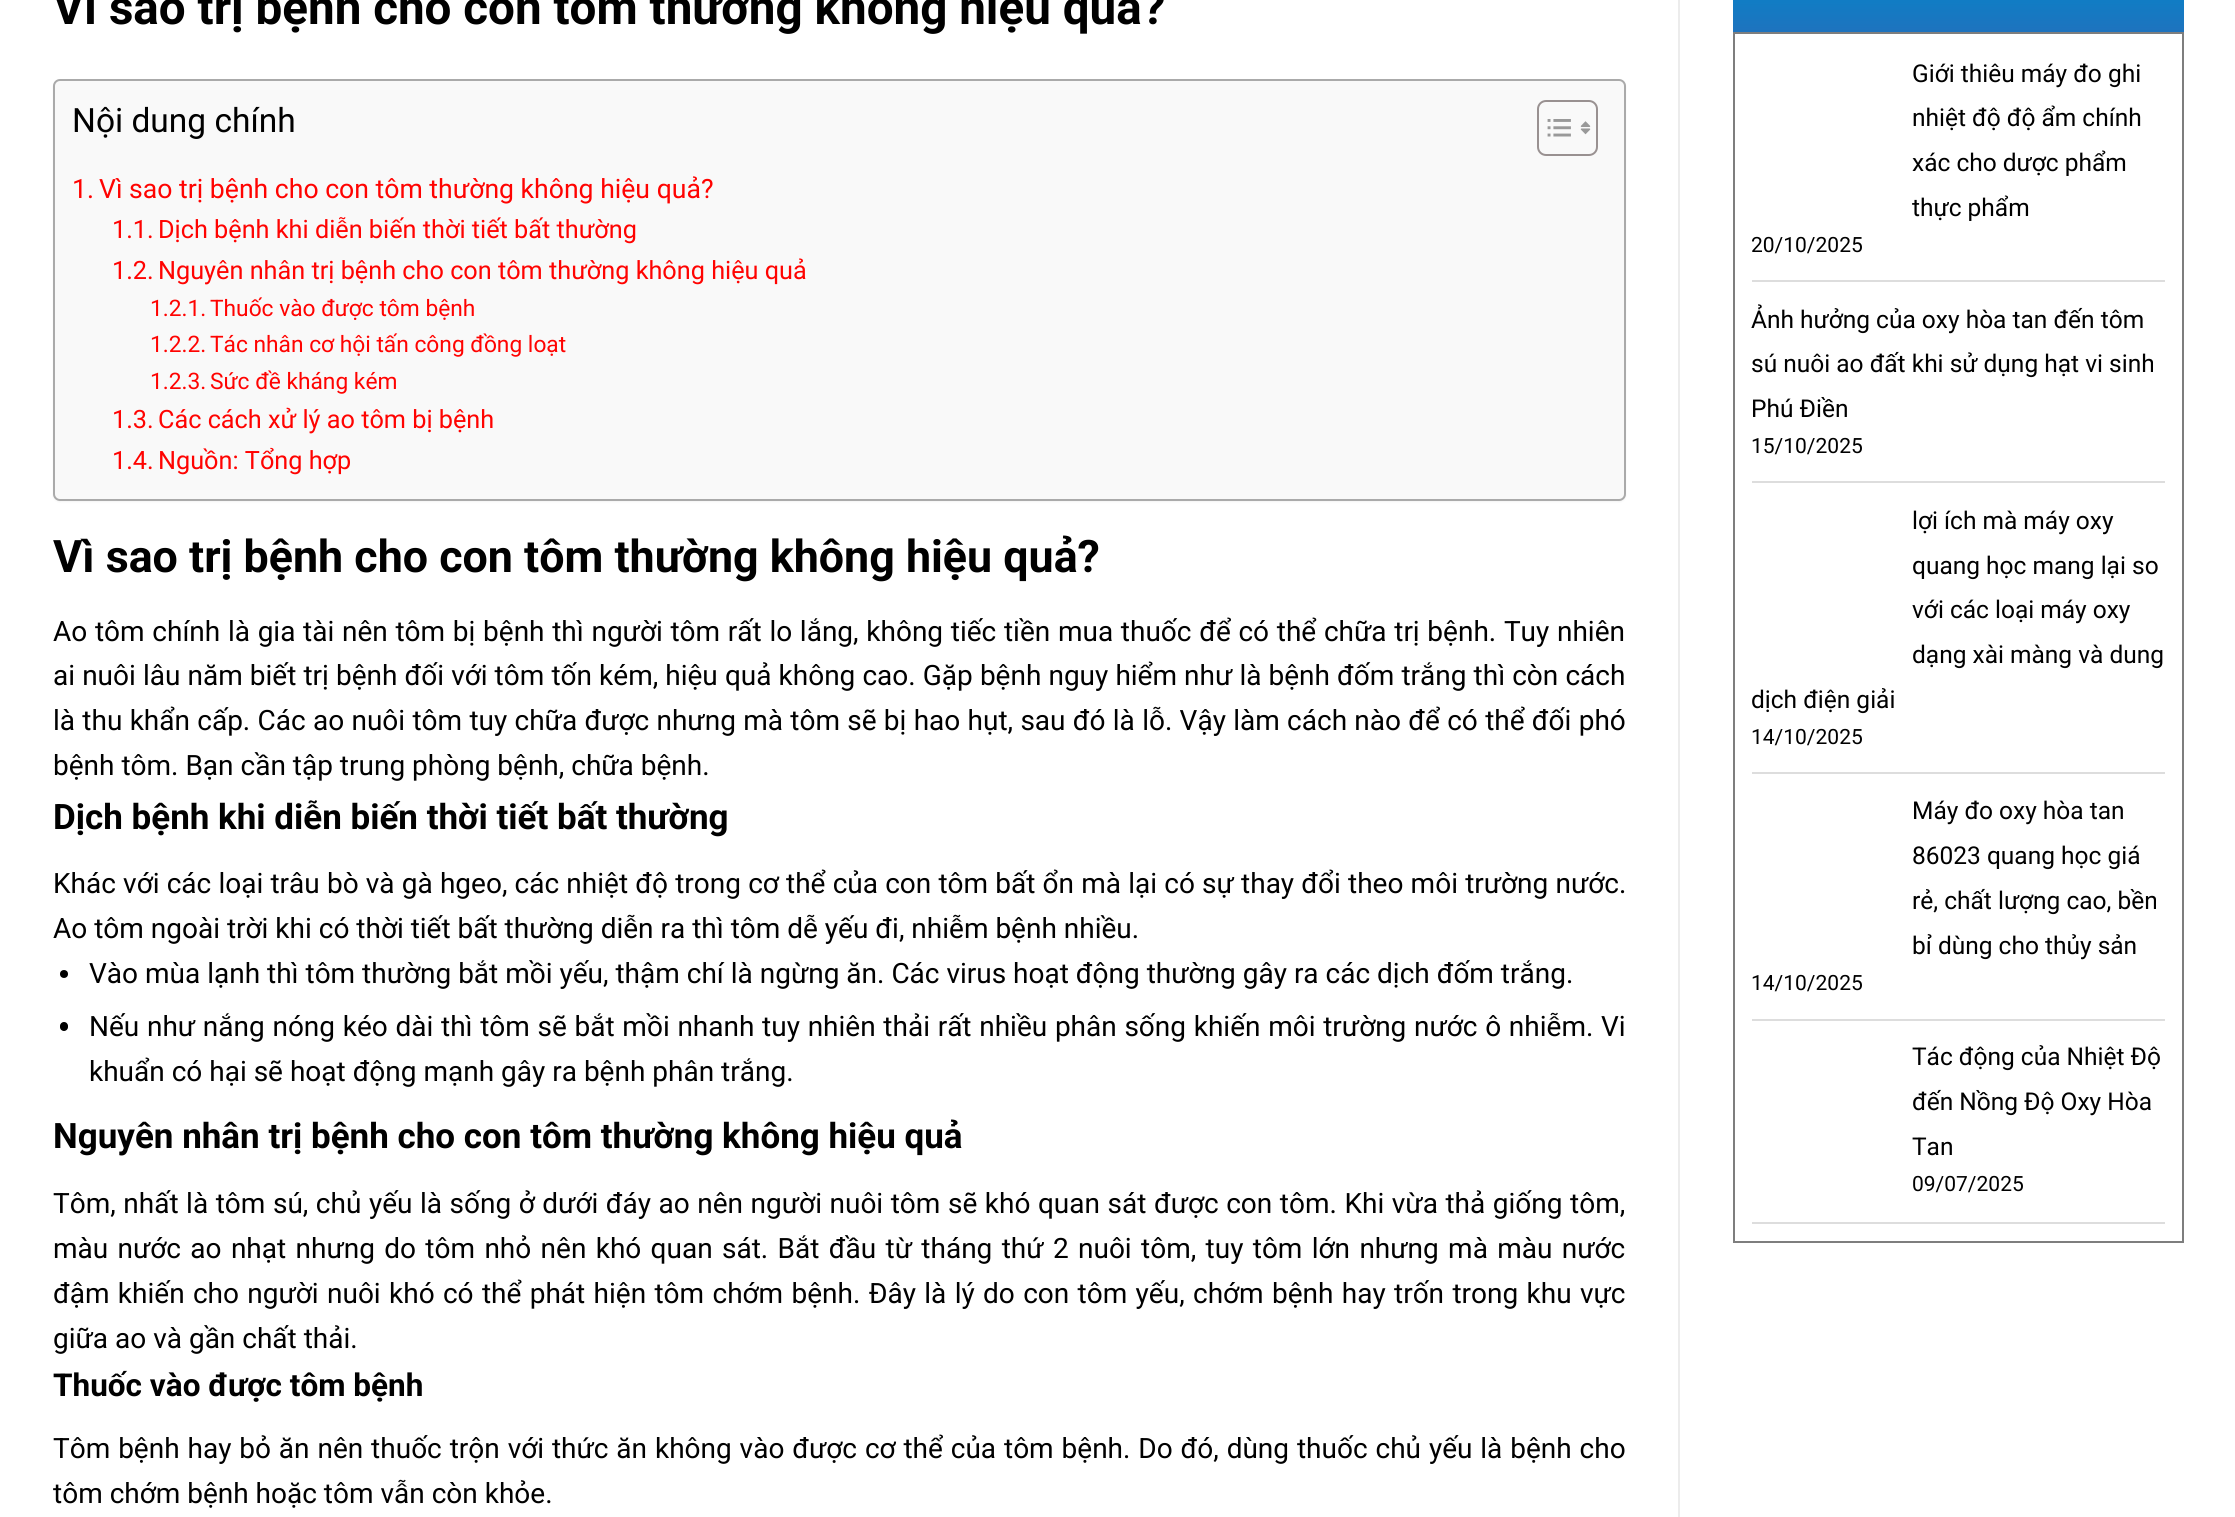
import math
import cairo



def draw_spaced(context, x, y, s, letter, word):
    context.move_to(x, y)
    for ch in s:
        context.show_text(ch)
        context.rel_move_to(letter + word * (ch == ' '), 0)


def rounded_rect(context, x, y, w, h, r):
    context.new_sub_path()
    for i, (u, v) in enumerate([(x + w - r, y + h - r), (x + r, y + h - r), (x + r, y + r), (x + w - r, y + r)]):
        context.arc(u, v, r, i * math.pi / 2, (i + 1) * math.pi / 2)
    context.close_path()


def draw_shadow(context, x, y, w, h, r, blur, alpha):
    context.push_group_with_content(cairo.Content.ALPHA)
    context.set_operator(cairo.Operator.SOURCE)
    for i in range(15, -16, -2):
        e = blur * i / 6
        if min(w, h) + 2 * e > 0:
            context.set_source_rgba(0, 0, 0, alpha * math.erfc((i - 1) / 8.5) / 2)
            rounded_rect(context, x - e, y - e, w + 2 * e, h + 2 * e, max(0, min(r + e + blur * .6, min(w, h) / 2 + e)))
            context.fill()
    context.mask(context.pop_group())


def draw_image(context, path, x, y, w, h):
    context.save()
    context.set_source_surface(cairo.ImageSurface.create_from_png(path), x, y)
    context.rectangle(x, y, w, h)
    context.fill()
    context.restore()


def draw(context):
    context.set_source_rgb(1, 1, 1)
    context.paint()
    context.set_source_rgb(0, 0, 0)
    draw_shadow(context, 53, 81, 1573, 421, 7, 1, 0.05)
    context.set_source_rgb(249 / 255, 249 / 255, 249 / 255)
    rounded_rect(context, 54, 80, 1571, 420, 6)
    context.fill_preserve()
    context.set_source_rgb(170 / 255, 170 / 255, 170 / 255)
    context.stroke()
    rounded_rect(context, 1538, 101, 59, 54, 8)
    context.set_source_rgb(153 / 255, 145 / 255, 145 / 255)
    context.stroke()
    draw_image(context, "images/1.png", 1547, 119, 24, 18)
    draw_image(context, "images/2.png", 1580, 121, 11, 14)
    context.set_source_rgb(0, 0, 0)
    context.arc(64, 974, 4, 0, 2 * math.pi)
    context.fill()
    rounded_rect(context, 60, 1022, 8, 9, 4)
    context.fill()
    context.set_source_rgb(236 / 255, 236 / 255, 236 / 255)
    context.rectangle(1678, 0, 2, 1517)
    context.fill()
    gradient = cairo.LinearGradient(1958, 32, 1958, -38)
    gradient.add_color_stop_rgba(0, 30 / 255, 115 / 255, 190 / 255, 1)
    gradient.add_color_stop_rgba(1, 0, 136 / 255, 204 / 255, 1)
    context.set_source(gradient)
    context.rectangle(1733, 0, 451, 32)
    context.fill()
    context.rectangle(1734, 33, 449, 1209)
    context.set_source_rgb(126 / 255, 126 / 255, 126 / 255)
    context.stroke()
    context.set_source_rgb(221 / 255, 221 / 255, 221 / 255)
    context.rectangle(1752, 280, 413, 2)
    context.fill()
    context.rectangle(1752, 481, 413, 2)
    context.fill()
    context.rectangle(1752, 772, 413, 2)
    context.fill()
    context.rectangle(1752, 1019, 413, 2)
    context.fill()
    context.rectangle(1752, 1222, 413, 2)
    context.fill()
    context.select_font_face("Roboto", cairo.FontSlant.NORMAL, cairo.FontWeight.BOLD)
    context.set_font_size(47.6)
    context.set_source_rgb(0, 0, 0)
    context.move_to(53, 24)
    context.show_text("Vì sao trị bệnh cho con tôm thường không hiệu quả?")
    context.select_font_face("Roboto")
    context.set_font_size(33.5)
    context.move_to(72, 132)
    context.show_text("Nội dung chính")
    context.set_font_size(26.6)
    context.set_source_rgb(1, 3 / 255, 1 / 255)
    context.move_to(72, 198)
    context.show_text("1.")
    context.move_to(99, 198)
    context.show_text("Vì sao trị bệnh cho con tôm thường không hiệu quả?")
    context.set_font_size(25.25)
    context.move_to(112, 238)
    context.show_text("1.1.")
    context.move_to(158, 238)
    context.show_text("Dịch bệnh khi diễn biến thời tiết bất thường")
    context.move_to(112, 279)
    context.show_text("1.2.")
    context.move_to(158, 279)
    context.show_text("Nguyên nhân trị bệnh cho con tôm thường không hiệu quả")
    context.set_font_size(22.75)
    context.move_to(150, 316)
    context.show_text("1.2.1.")
    context.move_to(210, 316)
    context.show_text("Thuốc vào được tôm bệnh")
    context.move_to(150, 352)
    context.show_text("1.2.2.")
    context.move_to(210, 352)
    context.show_text("Tác nhân cơ hội tấn công đồng loạt")
    context.move_to(150, 389)
    context.show_text("1.2.3.")
    context.move_to(210, 389)
    context.show_text("Sức đề kháng kém")
    context.set_font_size(25.25)
    context.move_to(112, 428)
    context.show_text("1.3.")
    context.move_to(158, 428)
    context.show_text("Các cách xử lý ao tôm bị bệnh")
    context.move_to(112, 469)
    context.show_text("1.4.")
    context.move_to(158, 469)
    context.show_text("Nguồn: Tổng hợp")
    context.select_font_face("Roboto", cairo.FontSlant.NORMAL, cairo.FontWeight.BOLD)
    context.set_font_size(44.8)
    context.set_source_rgb(0, 0, 0)
    context.move_to(53, 572)
    context.show_text("Vì sao trị bệnh cho con tôm thường không hiệu quả?")
    context.select_font_face("Roboto")
    context.set_font_size(28)
    draw_spaced(context, 53, 641, "Ao tôm chính là gia tài nên tôm bị bệnh thì người tôm rất lo lắng, không tiếc tiền mua thuốc để có thể chữa trị bệnh. Tuy nhiên", 0, 0.75)
    draw_spaced(context, 53, 685, "ai nuôi lâu năm biết trị bệnh đối với tôm tốn kém, hiệu quả không cao. Gặp bệnh nguy hiểm như là bệnh đốm trắng thì còn cách", 0, 0.15)
    draw_spaced(context, 53, 730, "là thu khẩn cấp. Các ao nuôi tôm tuy chữa được nhưng mà tôm sẽ bị hao hụt, sau đó là lỗ. Vậy làm cách nào để có thể đối phó", 0, 0.35)
    context.move_to(53, 775)
    context.show_text("bệnh tôm. Bạn cần tập trung phòng bệnh, chữa bệnh.")
    context.select_font_face("Roboto", cairo.FontSlant.NORMAL, cairo.FontWeight.BOLD)
    context.set_font_size(35)
    context.move_to(53, 829)
    context.show_text("Dịch bệnh khi diễn biến thời tiết bất thường")
    context.select_font_face("Roboto")
    context.set_font_size(28)
    draw_spaced(context, 53, 893, "Khác với các loại trâu bò và gà hgeo, các nhiệt độ trong cơ thể của con tôm bất ổn mà lại có sự thay đổi theo môi trường nước.", 0, 0.25)
    context.move_to(53, 938)
    context.show_text("Ao tôm ngoài trời khi có thời tiết bất thường diễn ra thì tôm dễ yếu đi, nhiễm bệnh nhiều.")
    context.move_to(89, 983)
    context.show_text("Vào mùa lạnh thì tôm thường bắt mồi yếu, thậm chí là ngừng ăn. Các virus hoạt động thường gây ra các dịch đốm trắng.")
    draw_spaced(context, 89, 1036, "Nếu như nắng nóng kéo dài thì tôm sẽ bắt mồi nhanh tuy nhiên thải rất nhiều phân sống khiến môi trường nước ô nhiễm. Vi", 0, 0.75)
    context.move_to(89, 1081)
    context.show_text("khuẩn có hại sẽ hoạt động mạnh gây ra bệnh phân trắng.")
    context.select_font_face("Roboto", cairo.FontSlant.NORMAL, cairo.FontWeight.BOLD)
    context.set_font_size(35)
    context.move_to(53, 1148)
    context.show_text("Nguyên nhân trị bệnh cho con tôm thường không hiệu quả")
    context.select_font_face("Roboto")
    context.set_font_size(28)
    draw_spaced(context, 53, 1213, "Tôm, nhất là tôm sú, chủ yếu là sống ở dưới đáy ao nên người nuôi tôm sẽ khó quan sát được con tôm. Khi vừa thả giống tôm,", 0, 0.6)
    draw_spaced(context, 53, 1258, "màu nước ao nhạt nhưng do tôm nhỏ nên khó quan sát. Bắt đầu từ tháng thứ 2 nuôi tôm, tuy tôm lớn nhưng mà màu nước", 0, 2.4)
    draw_spaced(context, 53, 1303, "đậm khiến cho người nuôi khó có thể phát hiện tôm chớm bệnh. Đây là lý do con tôm yếu, chớm bệnh hay trốn trong khu vực", 0, 1.4)
    context.move_to(53, 1348)
    context.show_text("giữa ao và gần chất thải.")
    context.select_font_face("Roboto", cairo.FontSlant.NORMAL, cairo.FontWeight.BOLD)
    context.set_font_size(31.5)
    context.move_to(53, 1396)
    context.show_text("Thuốc vào được tôm bệnh")
    context.select_font_face("Roboto")
    context.set_font_size(28)
    draw_spaced(context, 53, 1458, "Tôm bệnh hay bỏ ăn nên thuốc trộn với thức ăn không vào được cơ thể của tôm bệnh. Do đó, dùng thuốc chủ yếu là bệnh cho", 0, 0.95)
    context.move_to(53, 1503)
    context.show_text("tôm chớm bệnh hoặc tôm vẫn còn khỏe.")
    context.set_font_size(24.5)
    context.move_to(1912, 82)
    context.show_text("Giới thiêu máy đo ghi")
    context.move_to(1912, 126)
    context.show_text("nhiệt độ độ ẩm chính")
    context.move_to(1912, 171)
    context.show_text("xác cho dược phẩm")
    context.move_to(1912, 216)
    context.show_text("thực phẩm")
    context.set_font_size(21)
    context.move_to(1751, 252)
    context.show_text("20/10/2025")
    context.set_font_size(24.5)
    context.move_to(1751, 328)
    context.show_text("Ảnh hưởng của oxy hòa tan đến tôm")
    context.move_to(1751, 372)
    context.show_text("sú nuôi ao đất khi sử dụng hạt vi sinh")
    context.move_to(1751, 417)
    context.show_text("Phú Điền")
    context.set_font_size(21)
    context.move_to(1751, 453)
    context.show_text("15/10/2025")
    context.set_font_size(24.5)
    context.move_to(1912, 529)
    context.show_text("lợi ích mà máy oxy")
    context.move_to(1912, 574)
    context.show_text("quang học mang lại so")
    context.move_to(1912, 618)
    context.show_text("với các loại máy oxy")
    context.move_to(1912, 663)
    context.show_text("dạng xài màng và dung")
    context.move_to(1751, 708)
    context.show_text("dịch điện giải")
    context.set_font_size(21)
    context.move_to(1751, 744)
    context.show_text("14/10/2025")
    context.set_font_size(24.5)
    context.move_to(1912, 819)
    context.show_text("Máy đo oxy hòa tan")
    context.move_to(1912, 864)
    context.show_text("86023 quang học giá")
    context.move_to(1912, 909)
    context.show_text("rẻ, chất lượng cao, bền")
    context.move_to(1912, 954)
    context.show_text("bỉ dùng cho thủy sản")
    context.set_font_size(21)
    context.move_to(1751, 990)
    context.show_text("14/10/2025")
    context.set_font_size(24.5)
    context.move_to(1912, 1065)
    context.show_text("Tác động của Nhiệt Độ")
    context.move_to(1912, 1110)
    context.show_text("đến Nồng Độ Oxy Hòa")
    context.move_to(1912, 1155)
    context.show_text("Tan")
    context.set_font_size(21)
    context.move_to(1912, 1191)
    context.show_text("09/07/2025")


surface = cairo.ImageSurface(cairo.Format.RGB24, 2235, 1517)
context = cairo.Context(surface)
options = cairo.FontOptions()
options.set_hint_metrics(cairo.HintMetrics.OFF)
options.set_hint_style(cairo.HintStyle.NONE)
context.set_font_options(options)
context.set_miter_limit(4)
draw(context)
surface.write_to_png("out.png")
